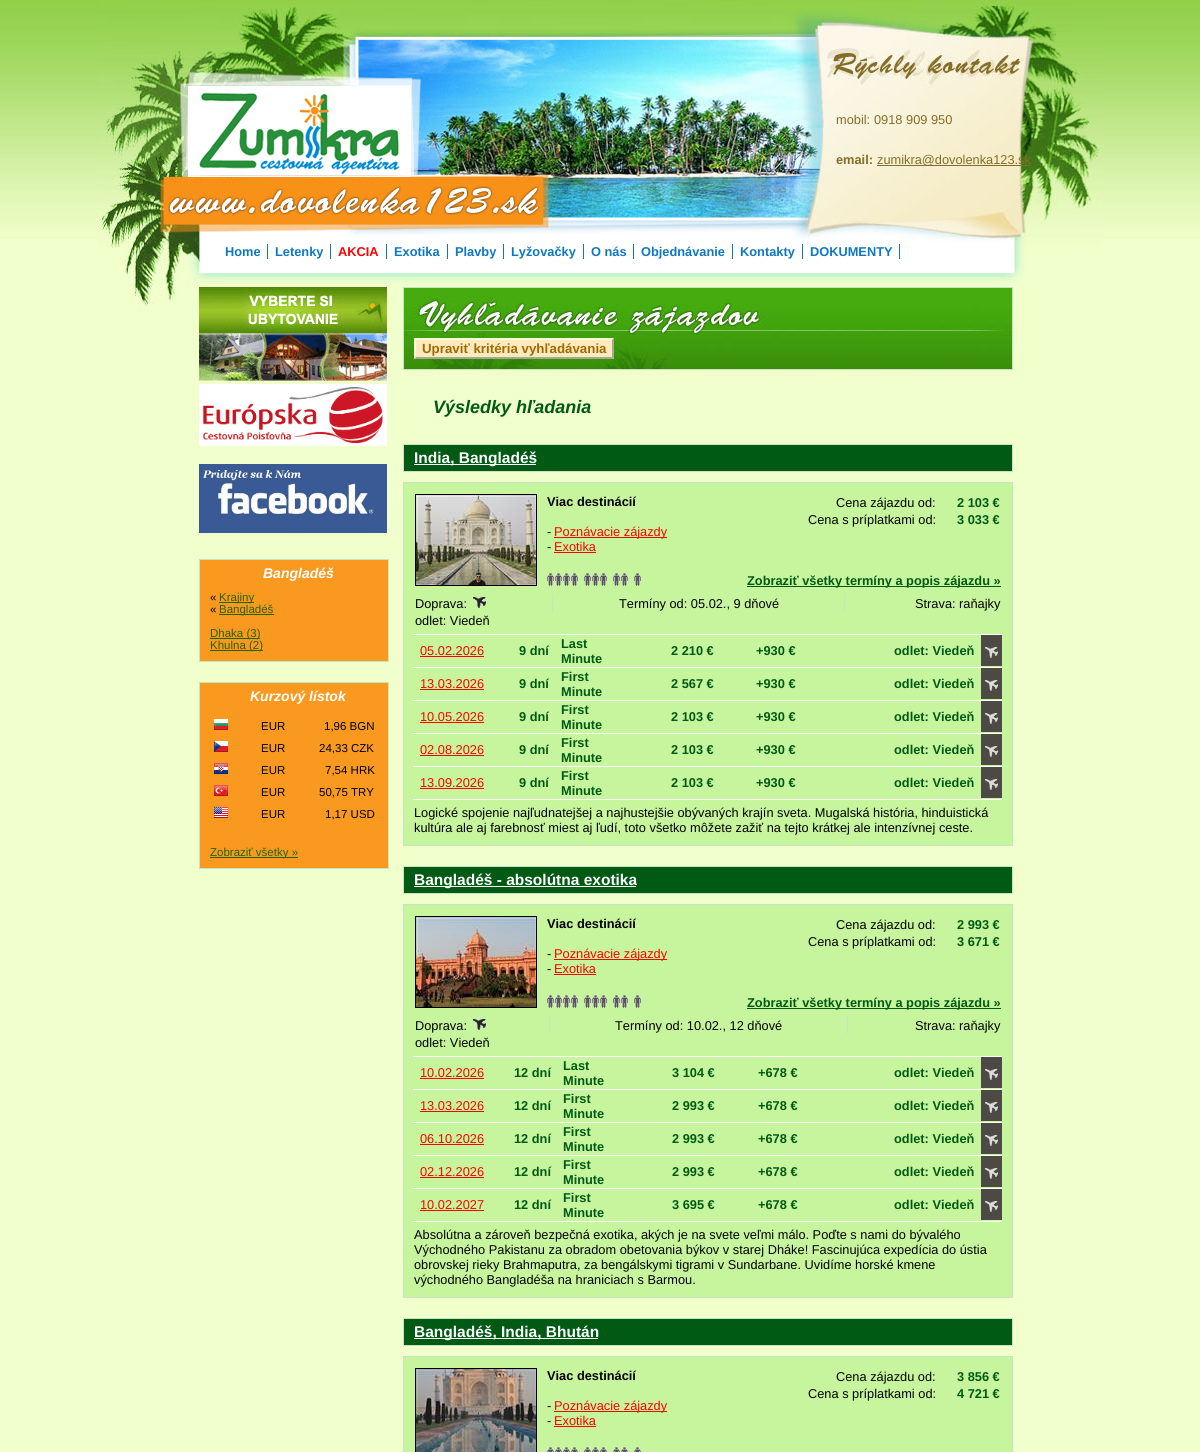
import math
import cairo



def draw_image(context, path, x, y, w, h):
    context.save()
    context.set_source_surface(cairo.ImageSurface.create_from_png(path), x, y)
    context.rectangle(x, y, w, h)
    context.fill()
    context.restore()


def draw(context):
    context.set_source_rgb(241 / 255, 1, 204 / 255)
    context.paint()
    draw_image(context, "images/1.png", 0, 0, 1200, 239)
    draw_image(context, "images/2.png", 98, 0, 1005, 312)
    context.set_source_rgb(1, 1, 1)
    context.rectangle(188, 176, 223, 1)
    context.fill()
    draw_image(context, "images/3.png", 188, 85, 223, 91)
    context.set_source_rgb(132 / 255, 109 / 255, 40 / 255)
    context.rectangle(877, 165, 153, 1)
    context.fill()
    context.set_source_rgb(247 / 255, 145 / 255, 24 / 255)
    context.rectangle(166, 184, 377, 35)
    context.fill()
    draw_image(context, "images/4.png", 168, 186, 372, 30)
    context.set_source_rgb(14 / 255, 119 / 255, 193 / 255)
    context.rectangle(267, 244, 1, 15)
    context.fill()
    context.rectangle(330, 244, 1, 15)
    context.fill()
    context.rectangle(386, 244, 1, 15)
    context.fill()
    context.rectangle(447, 244, 1, 15)
    context.fill()
    context.rectangle(503, 244, 1, 15)
    context.fill()
    context.rectangle(583, 244, 1, 15)
    context.fill()
    context.rectangle(633, 244, 1, 15)
    context.fill()
    context.rectangle(732, 244, 1, 15)
    context.fill()
    context.rectangle(802, 244, 1, 15)
    context.fill()
    context.rectangle(899, 244, 1, 15)
    context.fill()
    draw_image(context, "images/5.png", 199, 287, 188, 94)
    draw_image(context, "images/6.png", 199, 384, 188, 62)
    draw_image(context, "images/7.png", 199, 464, 188, 69)
    context.set_source_rgb(250 / 255, 153 / 255, 32 / 255)
    context.rectangle(200, 560, 188, 101)
    context.fill()
    context.set_source_rgb(197 / 255, 229 / 255, 195 / 255)
    context.rectangle(199, 559, 190, 1)
    context.fill()
    context.rectangle(388, 559, 1, 103)
    context.fill()
    context.rectangle(199, 559, 1, 27)
    context.fill()
    context.rectangle(199, 661, 190, 1)
    context.fill()
    context.rectangle(199, 586, 1, 76)
    context.fill()
    context.set_source_rgb(38 / 255, 99 / 255, 4 / 255)
    context.rectangle(219, 602, 35, 1)
    context.fill()
    context.rectangle(219, 614, 55, 1)
    context.fill()
    context.rectangle(210, 638, 50, 1)
    context.fill()
    context.rectangle(210, 650, 53, 1)
    context.fill()
    context.set_source_rgb(250 / 255, 153 / 255, 32 / 255)
    context.rectangle(200, 683, 188, 185)
    context.fill()
    context.set_source_rgb(197 / 255, 229 / 255, 195 / 255)
    context.rectangle(199, 682, 190, 1)
    context.fill()
    context.rectangle(388, 682, 1, 187)
    context.fill()
    context.rectangle(199, 682, 1, 27)
    context.fill()
    context.rectangle(199, 868, 190, 1)
    context.fill()
    context.rectangle(199, 709, 1, 160)
    context.fill()
    draw_image(context, "images/8.png", 214, 719, 14, 11)
    draw_image(context, "images/9.png", 214, 741, 14, 11)
    draw_image(context, "images/10.png", 214, 763, 14, 11)
    draw_image(context, "images/11.png", 214, 785, 14, 11)
    draw_image(context, "images/12.png", 214, 807, 14, 11)
    context.set_source_rgb(38 / 255, 99 / 255, 4 / 255)
    context.rectangle(210, 857, 88, 1)
    context.fill()
    draw_image(context, "images/13.png", 404, 288, 608, 81)
    context.rectangle(403.5, 287.5, 609, 82)
    context.set_source_rgb(197 / 255, 229 / 255, 195 / 255)
    context.set_line_width(1)
    context.stroke()
    context.set_source_rgb(1, 233 / 255, 191 / 255)
    context.rectangle(414, 338, 200, 21)
    context.fill()
    context.set_source_rgb(244 / 255, 1, 214 / 255)
    context.new_path()
    context.move_to(414, 338)
    context.line_to(614, 338)
    context.line_to(612, 340)
    context.line_to(416, 340)
    context.close_path()
    context.fill()
    context.set_source_rgb(163 / 255, 170 / 255, 143 / 255)
    context.new_path()
    context.move_to(614, 338)
    context.line_to(614, 359)
    context.line_to(612, 357)
    context.line_to(612, 340)
    context.close_path()
    context.fill()
    context.new_path()
    context.move_to(614, 359)
    context.line_to(414, 359)
    context.line_to(416, 357)
    context.line_to(612, 357)
    context.close_path()
    context.fill()
    context.set_source_rgb(244 / 255, 1, 214 / 255)
    context.new_path()
    context.move_to(414, 359)
    context.line_to(414, 338)
    context.line_to(416, 340)
    context.line_to(416, 357)
    context.close_path()
    context.fill()
    context.set_source_rgb(0, 90 / 255, 20 / 255)
    context.rectangle(403.5, 444.5, 609, 27)
    context.fill_preserve()
    context.set_source_rgb(197 / 255, 229 / 255, 195 / 255)
    context.stroke()
    context.set_source_rgb(1, 1, 1)
    context.rectangle(414, 464, 122, 1)
    context.fill()
    context.set_source_rgb(199 / 255, 245 / 255, 157 / 255)
    context.rectangle(403.5, 482.5, 609, 363)
    context.fill_preserve()
    context.set_source_rgb(197 / 255, 229 / 255, 195 / 255)
    context.stroke()
    context.rectangle(415.5, 494.5, 121, 91)
    context.set_source_rgb(0, 0, 0)
    context.stroke()
    draw_image(context, "images/14.png", 416, 495, 120, 90)
    context.set_source_rgb(1, 0, 0)
    context.rectangle(554, 537, 113, 1)
    context.fill()
    context.rectangle(554, 552, 42, 1)
    context.fill()
    draw_image(context, "images/15.png", 547, 573, 7, 13)
    draw_image(context, "images/15.png", 555, 573, 7, 13)
    draw_image(context, "images/15.png", 563, 573, 7, 13)
    draw_image(context, "images/15.png", 571, 573, 7, 13)
    draw_image(context, "images/15.png", 584, 573, 7, 13)
    draw_image(context, "images/15.png", 592, 573, 7, 13)
    draw_image(context, "images/15.png", 600, 573, 7, 13)
    draw_image(context, "images/15.png", 613, 573, 7, 13)
    draw_image(context, "images/15.png", 621, 573, 7, 13)
    draw_image(context, "images/15.png", 634, 573, 7, 13)
    context.set_source_rgb(0, 90 / 255, 20 / 255)
    context.rectangle(747, 586, 254, 1)
    context.fill()
    context.set_source_rgb(197 / 255, 229 / 255, 195 / 255)
    context.rectangle(552, 594, 1, 18)
    context.fill()
    draw_image(context, "images/16.png", 473, 597, 13, 11)
    context.rectangle(844, 594, 1, 18)
    context.fill()
    context.set_source_rgb(77 / 255, 73 / 255, 69 / 255)
    context.rectangle(981, 635, 21, 31)
    context.fill()
    context.set_source_rgb(1, 1, 1)
    context.rectangle(413, 634, 589, 1)
    context.fill()
    draw_image(context, "images/17.png", 985, 647, 13, 11)
    context.set_source_rgb(1, 0, 0)
    context.rectangle(420, 656, 64, 1)
    context.fill()
    context.set_source_rgb(77 / 255, 73 / 255, 69 / 255)
    context.rectangle(981, 668, 21, 31)
    context.fill()
    context.set_source_rgb(1, 1, 1)
    context.rectangle(413, 667, 589, 1)
    context.fill()
    draw_image(context, "images/17.png", 985, 680, 13, 11)
    context.set_source_rgb(1, 0, 0)
    context.rectangle(420, 689, 64, 1)
    context.fill()
    context.set_source_rgb(77 / 255, 73 / 255, 69 / 255)
    context.rectangle(981, 701, 21, 31)
    context.fill()
    context.set_source_rgb(1, 1, 1)
    context.rectangle(413, 700, 589, 1)
    context.fill()
    draw_image(context, "images/17.png", 985, 713, 13, 11)
    context.set_source_rgb(1, 0, 0)
    context.rectangle(420, 722, 64, 1)
    context.fill()
    context.set_source_rgb(77 / 255, 73 / 255, 69 / 255)
    context.rectangle(981, 734, 21, 31)
    context.fill()
    context.set_source_rgb(1, 1, 1)
    context.rectangle(413, 733, 589, 1)
    context.fill()
    draw_image(context, "images/17.png", 985, 746, 13, 11)
    context.set_source_rgb(1, 0, 0)
    context.rectangle(420, 755, 64, 1)
    context.fill()
    context.set_source_rgb(77 / 255, 73 / 255, 69 / 255)
    context.rectangle(981, 767, 21, 31)
    context.fill()
    context.set_source_rgb(1, 1, 1)
    context.rectangle(413, 766, 589, 1)
    context.fill()
    context.rectangle(413, 799, 589, 1)
    context.fill()
    draw_image(context, "images/17.png", 985, 779, 13, 11)
    context.set_source_rgb(1, 0, 0)
    context.rectangle(420, 788, 64, 1)
    context.fill()
    context.set_source_rgb(0, 90 / 255, 20 / 255)
    context.rectangle(403.5, 866.5, 609, 27)
    context.fill_preserve()
    context.set_source_rgb(197 / 255, 229 / 255, 195 / 255)
    context.stroke()
    context.set_source_rgb(1, 1, 1)
    context.rectangle(414, 886, 222, 1)
    context.fill()
    context.set_source_rgb(199 / 255, 245 / 255, 157 / 255)
    context.rectangle(403.5, 904.5, 609, 393)
    context.fill_preserve()
    context.set_source_rgb(197 / 255, 229 / 255, 195 / 255)
    context.stroke()
    context.rectangle(415.5, 916.5, 121, 91)
    context.set_source_rgb(0, 0, 0)
    context.stroke()
    draw_image(context, "images/18.png", 416, 917, 120, 90)
    context.set_source_rgb(1, 0, 0)
    context.rectangle(554, 959, 113, 1)
    context.fill()
    context.rectangle(554, 974, 42, 1)
    context.fill()
    draw_image(context, "images/15.png", 547, 995, 7, 13)
    draw_image(context, "images/15.png", 555, 995, 7, 13)
    draw_image(context, "images/15.png", 563, 995, 7, 13)
    draw_image(context, "images/15.png", 571, 995, 7, 13)
    draw_image(context, "images/15.png", 584, 995, 7, 13)
    draw_image(context, "images/15.png", 592, 995, 7, 13)
    draw_image(context, "images/15.png", 600, 995, 7, 13)
    draw_image(context, "images/15.png", 613, 995, 7, 13)
    draw_image(context, "images/15.png", 621, 995, 7, 13)
    draw_image(context, "images/15.png", 634, 995, 7, 13)
    context.set_source_rgb(0, 90 / 255, 20 / 255)
    context.rectangle(747, 1008, 254, 1)
    context.fill()
    context.set_source_rgb(197 / 255, 229 / 255, 195 / 255)
    context.rectangle(549, 1016, 1, 18)
    context.fill()
    draw_image(context, "images/16.png", 473, 1019, 13, 11)
    context.rectangle(847, 1016, 1, 18)
    context.fill()
    context.set_source_rgb(77 / 255, 73 / 255, 69 / 255)
    context.rectangle(981, 1057, 21, 31)
    context.fill()
    context.set_source_rgb(1, 1, 1)
    context.rectangle(413, 1056, 589, 1)
    context.fill()
    draw_image(context, "images/17.png", 985, 1069, 13, 11)
    context.set_source_rgb(1, 0, 0)
    context.rectangle(420, 1078, 64, 1)
    context.fill()
    context.set_source_rgb(77 / 255, 73 / 255, 69 / 255)
    context.rectangle(981, 1090, 21, 31)
    context.fill()
    context.set_source_rgb(1, 1, 1)
    context.rectangle(413, 1089, 589, 1)
    context.fill()
    draw_image(context, "images/17.png", 985, 1102, 13, 11)
    context.set_source_rgb(1, 0, 0)
    context.rectangle(420, 1111, 64, 1)
    context.fill()
    context.set_source_rgb(77 / 255, 73 / 255, 69 / 255)
    context.rectangle(981, 1123, 21, 31)
    context.fill()
    context.set_source_rgb(1, 1, 1)
    context.rectangle(413, 1122, 589, 1)
    context.fill()
    draw_image(context, "images/17.png", 985, 1135, 13, 11)
    context.set_source_rgb(1, 0, 0)
    context.rectangle(420, 1144, 64, 1)
    context.fill()
    context.set_source_rgb(77 / 255, 73 / 255, 69 / 255)
    context.rectangle(981, 1156, 21, 31)
    context.fill()
    context.set_source_rgb(1, 1, 1)
    context.rectangle(413, 1155, 589, 1)
    context.fill()
    draw_image(context, "images/17.png", 985, 1168, 13, 11)
    context.set_source_rgb(1, 0, 0)
    context.rectangle(420, 1177, 64, 1)
    context.fill()
    context.set_source_rgb(77 / 255, 73 / 255, 69 / 255)
    context.rectangle(981, 1189, 21, 31)
    context.fill()
    context.set_source_rgb(1, 1, 1)
    context.rectangle(413, 1188, 589, 1)
    context.fill()
    context.rectangle(413, 1221, 589, 1)
    context.fill()
    draw_image(context, "images/17.png", 985, 1201, 13, 11)
    context.set_source_rgb(1, 0, 0)
    context.rectangle(420, 1210, 64, 1)
    context.fill()
    context.set_source_rgb(0, 90 / 255, 20 / 255)
    context.rectangle(403.5, 1318.5, 609, 27)
    context.fill_preserve()
    context.set_source_rgb(197 / 255, 229 / 255, 195 / 255)
    context.stroke()
    context.set_source_rgb(1, 1, 1)
    context.rectangle(414, 1338, 184, 1)
    context.fill()
    context.set_source_rgb(199 / 255, 245 / 255, 157 / 255)
    context.rectangle(403.5, 1356.5, 609, 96)
    context.fill_preserve()
    context.set_source_rgb(197 / 255, 229 / 255, 195 / 255)
    context.stroke()
    context.rectangle(415.5, 1368.5, 121, 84)
    context.set_source_rgb(0, 0, 0)
    context.stroke()
    draw_image(context, "images/19.png", 416, 1369, 120, 83)
    context.set_source_rgb(1, 0, 0)
    context.rectangle(554, 1411, 113, 1)
    context.fill()
    context.rectangle(554, 1426, 42, 1)
    context.fill()
    draw_image(context, "images/20.png", 547, 1447, 7, 5)
    draw_image(context, "images/20.png", 555, 1447, 7, 5)
    draw_image(context, "images/20.png", 563, 1447, 7, 5)
    draw_image(context, "images/20.png", 571, 1447, 7, 5)
    draw_image(context, "images/20.png", 584, 1447, 7, 5)
    draw_image(context, "images/20.png", 592, 1447, 7, 5)
    draw_image(context, "images/20.png", 600, 1447, 7, 5)
    draw_image(context, "images/20.png", 613, 1447, 7, 5)
    draw_image(context, "images/20.png", 621, 1447, 7, 5)
    draw_image(context, "images/20.png", 634, 1447, 7, 5)
    context.select_font_face("Liberation Sans")
    context.set_font_size(12.8)
    context.set_source_rgb(132 / 255, 109 / 255, 40 / 255)
    context.move_to(836, 124)
    context.show_text("mobil:")
    context.move_to(874, 124)
    context.show_text("0918 909 950")
    context.select_font_face("Liberation Sans", cairo.FontSlant.NORMAL, cairo.FontWeight.BOLD)
    context.move_to(836, 164)
    context.show_text("email:")
    context.select_font_face("Liberation Sans")
    context.move_to(877, 164)
    context.show_text("zumikra@dovolenka123.sk")
    context.select_font_face("Liberation Sans", cairo.FontSlant.NORMAL, cairo.FontWeight.BOLD)
    context.set_source_rgb(14 / 255, 119 / 255, 193 / 255)
    context.move_to(225, 256)
    context.show_text("Home")
    context.move_to(275, 256)
    context.show_text("Letenky")
    context.set_source_rgb(1, 0, 0)
    context.move_to(338, 256)
    context.show_text("AKCIA")
    context.set_source_rgb(14 / 255, 119 / 255, 193 / 255)
    context.move_to(394, 256)
    context.show_text("Exotika")
    context.move_to(455, 256)
    context.show_text("Plavby")
    context.move_to(511, 256)
    context.show_text("Lyžovačky")
    context.move_to(591, 256)
    context.show_text("O nás")
    context.move_to(641, 256)
    context.show_text("Objednávanie")
    context.move_to(740, 256)
    context.show_text("Kontakty")
    context.move_to(810, 256)
    context.show_text("DOKUMENTY")
    context.select_font_face("Liberation Sans", cairo.FontSlant.ITALIC, cairo.FontWeight.BOLD)
    context.set_font_size(14)
    context.set_source_rgb(1, 1, 1)
    context.move_to(263, 578)
    context.show_text("Bangladéš")
    context.select_font_face("Liberation Sans")
    context.set_font_size(11.5)
    context.set_source_rgb(0, 0, 0)
    context.move_to(210, 601)
    context.show_text("«")
    context.set_source_rgb(38 / 255, 99 / 255, 4 / 255)
    context.move_to(219, 601)
    context.show_text("Krajiny")
    context.set_source_rgb(0, 0, 0)
    context.move_to(210, 613)
    context.show_text("«")
    context.set_source_rgb(38 / 255, 99 / 255, 4 / 255)
    context.move_to(219, 613)
    context.show_text("Bangladéš")
    context.move_to(210, 637)
    context.show_text("Dhaka (3)")
    context.move_to(210, 649)
    context.show_text("Khulna (2)")
    context.select_font_face("Liberation Sans", cairo.FontSlant.ITALIC, cairo.FontWeight.BOLD)
    context.set_font_size(14)
    context.set_source_rgb(1, 1, 1)
    context.move_to(250, 701)
    context.show_text("Kurzový lístok")
    context.select_font_face("Liberation Sans")
    context.set_font_size(11.5)
    context.set_source_rgb(0, 0, 0)
    context.move_to(261, 730)
    context.show_text("EUR")
    context.move_to(324, 730)
    context.show_text("1,96 BGN")
    context.move_to(261, 752)
    context.show_text("EUR")
    context.move_to(319, 752)
    context.show_text("24,33 CZK")
    context.move_to(261, 774)
    context.show_text("EUR")
    context.move_to(325, 774)
    context.show_text("7,54 HRK")
    context.move_to(261, 796)
    context.show_text("EUR")
    context.move_to(319, 796)
    context.show_text("50,75 TRY")
    context.move_to(261, 818)
    context.show_text("EUR")
    context.move_to(325, 818)
    context.show_text("1,17 USD")
    context.set_source_rgb(38 / 255, 99 / 255, 4 / 255)
    context.move_to(210, 856)
    context.show_text("Zobraziť všetky »")
    context.select_font_face("Liberation Sans", cairo.FontSlant.NORMAL, cairo.FontWeight.BOLD)
    context.set_font_size(13.3)
    context.set_source_rgb(159 / 255, 107 / 255, 0)
    context.move_to(422, 353)
    context.show_text("Upraviť kritéria vyhľadávania")
    context.select_font_face("Liberation Sans", cairo.FontSlant.ITALIC, cairo.FontWeight.BOLD)
    context.set_font_size(18)
    context.set_source_rgb(0, 90 / 255, 20 / 255)
    context.move_to(433, 413)
    context.show_text("Výsledky hľadania")
    context.select_font_face("Liberation Sans", cairo.FontSlant.NORMAL, cairo.FontWeight.BOLD)
    context.set_font_size(15.5)
    context.set_source_rgb(1, 1, 1)
    context.move_to(414, 463)
    context.show_text("India, Bangladéš")
    context.set_font_size(12.8)
    context.set_source_rgb(0, 0, 0)
    context.move_to(547, 506)
    context.show_text("Viac destinácií")
    context.select_font_face("Liberation Sans")
    context.move_to(836, 507)
    context.show_text("Cena zájazdu od:")
    context.select_font_face("Liberation Sans", cairo.FontSlant.NORMAL, cairo.FontWeight.BOLD)
    context.set_source_rgb(0, 90 / 255, 20 / 255)
    context.move_to(957, 507)
    context.show_text("2 103 €")
    context.select_font_face("Liberation Sans")
    context.set_source_rgb(0, 0, 0)
    context.move_to(808, 524)
    context.show_text("Cena s príplatkami od:")
    context.select_font_face("Liberation Sans", cairo.FontSlant.NORMAL, cairo.FontWeight.BOLD)
    context.set_source_rgb(0, 90 / 255, 20 / 255)
    context.move_to(957, 524)
    context.show_text("3 033 €")
    context.select_font_face("Liberation Sans")
    context.set_source_rgb(0, 0, 0)
    context.move_to(547, 536)
    context.show_text("-")
    context.set_source_rgb(1, 0, 0)
    context.move_to(554, 536)
    context.show_text("Poznávacie zájazdy")
    context.set_source_rgb(0, 0, 0)
    context.move_to(547, 551)
    context.show_text("-")
    context.set_source_rgb(1, 0, 0)
    context.move_to(554, 551)
    context.show_text("Exotika")
    context.select_font_face("Liberation Sans", cairo.FontSlant.NORMAL, cairo.FontWeight.BOLD)
    context.set_source_rgb(0, 90 / 255, 20 / 255)
    context.move_to(747, 585)
    context.show_text("Zobraziť všetky termíny a popis zájazdu »")
    context.select_font_face("Liberation Sans")
    context.set_source_rgb(0, 0, 0)
    context.move_to(415, 608)
    context.show_text("Doprava:")
    context.move_to(619, 608)
    context.show_text("Termíny od: 05.02., 9 dňové")
    context.move_to(915, 608)
    context.show_text("Strava: raňajky")
    context.move_to(415, 625)
    context.show_text("odlet: Viedeň")
    context.set_source_rgb(1, 0, 0)
    context.move_to(420, 655)
    context.show_text("05.02.2026")
    context.select_font_face("Liberation Sans", cairo.FontSlant.NORMAL, cairo.FontWeight.BOLD)
    context.set_source_rgb(0, 90 / 255, 20 / 255)
    context.move_to(519, 655)
    context.show_text("9 dní")
    context.move_to(561, 648)
    context.show_text("Last")
    context.move_to(561, 663)
    context.show_text("Minute")
    context.move_to(671, 655)
    context.show_text("2 210 €")
    context.move_to(756, 655)
    context.show_text("+930 €")
    context.move_to(894, 655)
    context.show_text("odlet: Viedeň")
    context.select_font_face("Liberation Sans")
    context.set_source_rgb(1, 0, 0)
    context.move_to(420, 688)
    context.show_text("13.03.2026")
    context.select_font_face("Liberation Sans", cairo.FontSlant.NORMAL, cairo.FontWeight.BOLD)
    context.set_source_rgb(0, 90 / 255, 20 / 255)
    context.move_to(519, 688)
    context.show_text("9 dní")
    context.move_to(561, 681)
    context.show_text("First")
    context.move_to(561, 696)
    context.show_text("Minute")
    context.move_to(671, 688)
    context.show_text("2 567 €")
    context.move_to(756, 688)
    context.show_text("+930 €")
    context.move_to(894, 688)
    context.show_text("odlet: Viedeň")
    context.select_font_face("Liberation Sans")
    context.set_source_rgb(1, 0, 0)
    context.move_to(420, 721)
    context.show_text("10.05.2026")
    context.select_font_face("Liberation Sans", cairo.FontSlant.NORMAL, cairo.FontWeight.BOLD)
    context.set_source_rgb(0, 90 / 255, 20 / 255)
    context.move_to(519, 721)
    context.show_text("9 dní")
    context.move_to(561, 714)
    context.show_text("First")
    context.move_to(561, 729)
    context.show_text("Minute")
    context.move_to(671, 721)
    context.show_text("2 103 €")
    context.move_to(756, 721)
    context.show_text("+930 €")
    context.move_to(894, 721)
    context.show_text("odlet: Viedeň")
    context.select_font_face("Liberation Sans")
    context.set_source_rgb(1, 0, 0)
    context.move_to(420, 754)
    context.show_text("02.08.2026")
    context.select_font_face("Liberation Sans", cairo.FontSlant.NORMAL, cairo.FontWeight.BOLD)
    context.set_source_rgb(0, 90 / 255, 20 / 255)
    context.move_to(519, 754)
    context.show_text("9 dní")
    context.move_to(561, 747)
    context.show_text("First")
    context.move_to(561, 762)
    context.show_text("Minute")
    context.move_to(671, 754)
    context.show_text("2 103 €")
    context.move_to(756, 754)
    context.show_text("+930 €")
    context.move_to(894, 754)
    context.show_text("odlet: Viedeň")
    context.select_font_face("Liberation Sans")
    context.set_source_rgb(1, 0, 0)
    context.move_to(420, 787)
    context.show_text("13.09.2026")
    context.select_font_face("Liberation Sans", cairo.FontSlant.NORMAL, cairo.FontWeight.BOLD)
    context.set_source_rgb(0, 90 / 255, 20 / 255)
    context.move_to(519, 787)
    context.show_text("9 dní")
    context.move_to(561, 780)
    context.show_text("First")
    context.move_to(561, 795)
    context.show_text("Minute")
    context.move_to(671, 787)
    context.show_text("2 103 €")
    context.move_to(756, 787)
    context.show_text("+930 €")
    context.move_to(894, 787)
    context.show_text("odlet: Viedeň")
    context.select_font_face("Liberation Sans")
    context.set_source_rgb(0, 0, 0)
    context.move_to(414, 817)
    context.show_text("Logické spojenie najľudnatejšej a najhustejšie obývaných krajín sveta. Mugalská história, hinduistická")
    context.move_to(414, 832)
    context.show_text("kultúra ale aj farebnosť miest aj ľudí, toto všetko môžete zažiť na tejto krátkej ale intenzívnej ceste.")
    context.select_font_face("Liberation Sans", cairo.FontSlant.NORMAL, cairo.FontWeight.BOLD)
    context.set_font_size(15.5)
    context.set_source_rgb(1, 1, 1)
    context.move_to(414, 885)
    context.show_text("Bangladéš - absolútna exotika")
    context.set_font_size(12.8)
    context.set_source_rgb(0, 0, 0)
    context.move_to(547, 928)
    context.show_text("Viac destinácií")
    context.select_font_face("Liberation Sans")
    context.move_to(836, 929)
    context.show_text("Cena zájazdu od:")
    context.select_font_face("Liberation Sans", cairo.FontSlant.NORMAL, cairo.FontWeight.BOLD)
    context.set_source_rgb(0, 90 / 255, 20 / 255)
    context.move_to(957, 929)
    context.show_text("2 993 €")
    context.select_font_face("Liberation Sans")
    context.set_source_rgb(0, 0, 0)
    context.move_to(808, 946)
    context.show_text("Cena s príplatkami od:")
    context.select_font_face("Liberation Sans", cairo.FontSlant.NORMAL, cairo.FontWeight.BOLD)
    context.set_source_rgb(0, 90 / 255, 20 / 255)
    context.move_to(957, 946)
    context.show_text("3 671 €")
    context.select_font_face("Liberation Sans")
    context.set_source_rgb(0, 0, 0)
    context.move_to(547, 958)
    context.show_text("-")
    context.set_source_rgb(1, 0, 0)
    context.move_to(554, 958)
    context.show_text("Poznávacie zájazdy")
    context.set_source_rgb(0, 0, 0)
    context.move_to(547, 973)
    context.show_text("-")
    context.set_source_rgb(1, 0, 0)
    context.move_to(554, 973)
    context.show_text("Exotika")
    context.select_font_face("Liberation Sans", cairo.FontSlant.NORMAL, cairo.FontWeight.BOLD)
    context.set_source_rgb(0, 90 / 255, 20 / 255)
    context.move_to(747, 1007)
    context.show_text("Zobraziť všetky termíny a popis zájazdu »")
    context.select_font_face("Liberation Sans")
    context.set_source_rgb(0, 0, 0)
    context.move_to(415, 1030)
    context.show_text("Doprava:")
    context.move_to(615, 1030)
    context.show_text("Termíny od: 10.02., 12 dňové")
    context.move_to(915, 1030)
    context.show_text("Strava: raňajky")
    context.move_to(415, 1047)
    context.show_text("odlet: Viedeň")
    context.set_source_rgb(1, 0, 0)
    context.move_to(420, 1077)
    context.show_text("10.02.2026")
    context.select_font_face("Liberation Sans", cairo.FontSlant.NORMAL, cairo.FontWeight.BOLD)
    context.set_source_rgb(0, 90 / 255, 20 / 255)
    context.move_to(514, 1077)
    context.show_text("12 dní")
    context.move_to(563, 1070)
    context.show_text("Last")
    context.move_to(563, 1085)
    context.show_text("Minute")
    context.move_to(672, 1077)
    context.show_text("3 104 €")
    context.move_to(758, 1077)
    context.show_text("+678 €")
    context.move_to(894, 1077)
    context.show_text("odlet: Viedeň")
    context.select_font_face("Liberation Sans")
    context.set_source_rgb(1, 0, 0)
    context.move_to(420, 1110)
    context.show_text("13.03.2026")
    context.select_font_face("Liberation Sans", cairo.FontSlant.NORMAL, cairo.FontWeight.BOLD)
    context.set_source_rgb(0, 90 / 255, 20 / 255)
    context.move_to(514, 1110)
    context.show_text("12 dní")
    context.move_to(563, 1103)
    context.show_text("First")
    context.move_to(563, 1118)
    context.show_text("Minute")
    context.move_to(672, 1110)
    context.show_text("2 993 €")
    context.move_to(758, 1110)
    context.show_text("+678 €")
    context.move_to(894, 1110)
    context.show_text("odlet: Viedeň")
    context.select_font_face("Liberation Sans")
    context.set_source_rgb(1, 0, 0)
    context.move_to(420, 1143)
    context.show_text("06.10.2026")
    context.select_font_face("Liberation Sans", cairo.FontSlant.NORMAL, cairo.FontWeight.BOLD)
    context.set_source_rgb(0, 90 / 255, 20 / 255)
    context.move_to(514, 1143)
    context.show_text("12 dní")
    context.move_to(563, 1136)
    context.show_text("First")
    context.move_to(563, 1151)
    context.show_text("Minute")
    context.move_to(672, 1143)
    context.show_text("2 993 €")
    context.move_to(758, 1143)
    context.show_text("+678 €")
    context.move_to(894, 1143)
    context.show_text("odlet: Viedeň")
    context.select_font_face("Liberation Sans")
    context.set_source_rgb(1, 0, 0)
    context.move_to(420, 1176)
    context.show_text("02.12.2026")
    context.select_font_face("Liberation Sans", cairo.FontSlant.NORMAL, cairo.FontWeight.BOLD)
    context.set_source_rgb(0, 90 / 255, 20 / 255)
    context.move_to(514, 1176)
    context.show_text("12 dní")
    context.move_to(563, 1169)
    context.show_text("First")
    context.move_to(563, 1184)
    context.show_text("Minute")
    context.move_to(672, 1176)
    context.show_text("2 993 €")
    context.move_to(758, 1176)
    context.show_text("+678 €")
    context.move_to(894, 1176)
    context.show_text("odlet: Viedeň")
    context.select_font_face("Liberation Sans")
    context.set_source_rgb(1, 0, 0)
    context.move_to(420, 1209)
    context.show_text("10.02.2027")
    context.select_font_face("Liberation Sans", cairo.FontSlant.NORMAL, cairo.FontWeight.BOLD)
    context.set_source_rgb(0, 90 / 255, 20 / 255)
    context.move_to(514, 1209)
    context.show_text("12 dní")
    context.move_to(563, 1202)
    context.show_text("First")
    context.move_to(563, 1217)
    context.show_text("Minute")
    context.move_to(672, 1209)
    context.show_text("3 695 €")
    context.move_to(758, 1209)
    context.show_text("+678 €")
    context.move_to(894, 1209)
    context.show_text("odlet: Viedeň")
    context.select_font_face("Liberation Sans")
    context.set_source_rgb(0, 0, 0)
    context.move_to(414, 1239)
    context.show_text("Absolútna a zároveň bezpečná exotika, akých je na svete veľmi málo. Poďte s nami do bývalého")
    context.move_to(414, 1254)
    context.show_text("Východného Pakistanu za obradom obetovania býkov v starej Dháke! Fascinujúca expedícia do ústia")
    context.move_to(414, 1269)
    context.show_text("obrovskej rieky Brahmaputra, za bengálskymi tigrami v Sundarbane. Uvidíme horské kmene")
    context.move_to(414, 1284)
    context.show_text("východného Bangladéša na hraniciach s Barmou.")
    context.select_font_face("Liberation Sans", cairo.FontSlant.NORMAL, cairo.FontWeight.BOLD)
    context.set_font_size(15.5)
    context.set_source_rgb(1, 1, 1)
    context.move_to(414, 1337)
    context.show_text("Bangladéš, India, Bhután")
    context.set_font_size(12.8)
    context.set_source_rgb(0, 0, 0)
    context.move_to(547, 1380)
    context.show_text("Viac destinácií")
    context.select_font_face("Liberation Sans")
    context.move_to(836, 1381)
    context.show_text("Cena zájazdu od:")
    context.select_font_face("Liberation Sans", cairo.FontSlant.NORMAL, cairo.FontWeight.BOLD)
    context.set_source_rgb(0, 90 / 255, 20 / 255)
    context.move_to(957, 1381)
    context.show_text("3 856 €")
    context.select_font_face("Liberation Sans")
    context.set_source_rgb(0, 0, 0)
    context.move_to(808, 1398)
    context.show_text("Cena s príplatkami od:")
    context.select_font_face("Liberation Sans", cairo.FontSlant.NORMAL, cairo.FontWeight.BOLD)
    context.set_source_rgb(0, 90 / 255, 20 / 255)
    context.move_to(957, 1398)
    context.show_text("4 721 €")
    context.select_font_face("Liberation Sans")
    context.set_source_rgb(0, 0, 0)
    context.move_to(547, 1410)
    context.show_text("-")
    context.set_source_rgb(1, 0, 0)
    context.move_to(554, 1410)
    context.show_text("Poznávacie zájazdy")
    context.set_source_rgb(0, 0, 0)
    context.move_to(547, 1425)
    context.show_text("-")
    context.set_source_rgb(1, 0, 0)
    context.move_to(554, 1425)
    context.show_text("Exotika")


surface = cairo.ImageSurface(cairo.Format.RGB24, 1200, 1452)
context = cairo.Context(surface)
options = cairo.FontOptions()
options.set_hint_metrics(cairo.HintMetrics.OFF)
options.set_hint_style(cairo.HintStyle.NONE)
context.set_font_options(options)
context.set_miter_limit(4)
draw(context)
surface.write_to_png("out.png")
